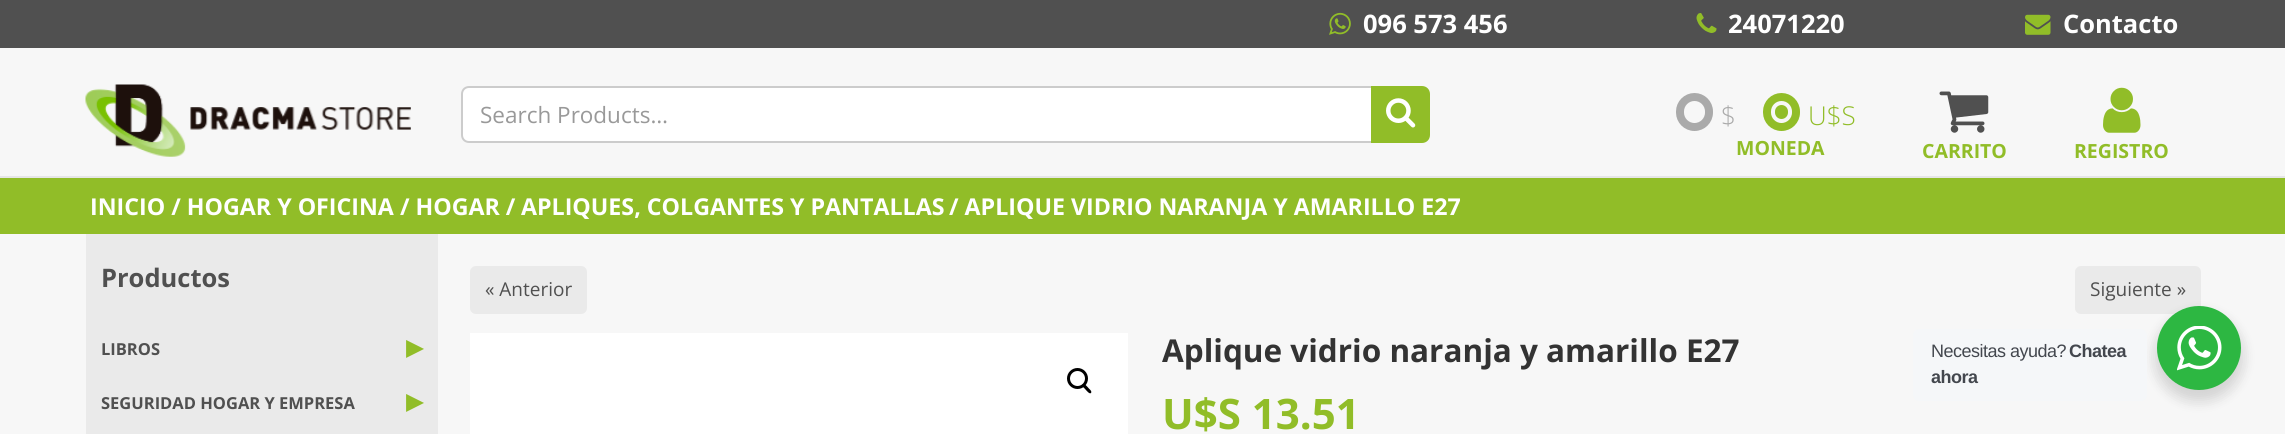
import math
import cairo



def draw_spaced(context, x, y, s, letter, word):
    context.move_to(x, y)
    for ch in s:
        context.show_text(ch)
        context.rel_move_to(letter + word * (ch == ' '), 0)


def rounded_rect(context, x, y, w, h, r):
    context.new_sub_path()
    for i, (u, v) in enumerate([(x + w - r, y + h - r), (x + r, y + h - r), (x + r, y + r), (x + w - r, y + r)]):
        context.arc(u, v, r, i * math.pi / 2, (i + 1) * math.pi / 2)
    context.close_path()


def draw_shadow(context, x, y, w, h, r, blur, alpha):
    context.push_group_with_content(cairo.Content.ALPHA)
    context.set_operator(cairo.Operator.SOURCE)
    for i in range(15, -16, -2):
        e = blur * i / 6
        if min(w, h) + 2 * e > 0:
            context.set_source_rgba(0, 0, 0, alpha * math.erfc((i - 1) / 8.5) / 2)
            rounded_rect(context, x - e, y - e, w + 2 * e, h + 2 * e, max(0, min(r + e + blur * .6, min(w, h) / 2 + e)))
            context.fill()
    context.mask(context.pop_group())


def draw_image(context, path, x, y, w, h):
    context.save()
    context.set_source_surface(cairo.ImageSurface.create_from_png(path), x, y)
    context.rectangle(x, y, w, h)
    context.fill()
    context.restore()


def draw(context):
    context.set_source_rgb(247 / 255, 247 / 255, 247 / 255)
    context.paint()
    context.set_source_rgb(80 / 255, 80 / 255, 80 / 255)
    context.rectangle(0, 0, 2285, 48)
    context.fill()
    draw_image(context, "images/1.png", 1329, 12, 22, 23)
    draw_image(context, "images/2.png", 1696, 13, 21, 20)
    draw_image(context, "images/3.png", 2025, 14, 26, 21)
    context.set_source_rgb(230 / 255, 230 / 255, 230 / 255)
    context.rectangle(0, 176, 2285, 2)
    context.fill()
    draw_image(context, "images/4.png", 85, 84, 326, 73)
    context.set_source_rgb(1, 1, 1)
    context.new_path()
    context.move_to(469, 87)
    context.line_to(1372, 87)
    context.line_to(1372, 142)
    context.line_to(469, 142)
    context.curve_to(465, 142, 462, 139, 462, 135)
    context.line_to(462, 94)
    context.curve_to(462, 90, 465, 87, 469, 87)
    context.close_path()
    context.fill_preserve()
    context.set_source_rgb(204 / 255, 204 / 255, 204 / 255)
    context.stroke()
    context.set_source_rgb(145 / 255, 189 / 255, 40 / 255)
    context.new_path()
    context.move_to(1371, 86)
    context.line_to(1422, 86)
    context.curve_to(1426.5, 86, 1430, 89.5, 1430, 94)
    context.line_to(1430, 135)
    context.curve_to(1430, 139.5, 1426.5, 143, 1422, 143)
    context.line_to(1371, 143)
    context.close_path()
    context.fill()
    draw_image(context, "images/5.png", 1386, 98, 30, 30)
    rounded_rect(context, 1680, 97, 29, 30, 14.5)
    context.set_source_rgb(170 / 255, 170 / 255, 170 / 255)
    context.set_line_width(8)
    context.stroke()
    rounded_rect(context, 1767, 97, 29, 30, 14.5)
    context.set_source_rgb(145 / 255, 189 / 255, 40 / 255)
    context.stroke()
    rounded_rect(context, 1775, 105, 13, 14, 6.5)
    context.fill()
    draw_image(context, "images/6.png", 1939, 91, 50, 42)
    draw_image(context, "images/7.png", 2103, 87, 38, 46)
    context.rectangle(0, 178, 2285, 56)
    context.fill()
    context.set_source_rgb(234 / 255, 234 / 255, 234 / 255)
    context.rectangle(86, 234, 352, 200)
    context.fill()
    rounded_rect(context, 470, 266, 117, 48, 6)
    context.fill()
    rounded_rect(context, 2075, 266, 126, 48, 6)
    context.fill()
    context.set_source_rgb(1, 1, 1)
    context.rectangle(470, 333, 658, 101)
    context.fill()
    context.arc(1077.5, 378.5, 9, 0, 2 * math.pi)
    context.set_source_rgb(0, 0, 0)
    context.set_line_width(3)
    context.stroke()
    context.new_path()
    context.move_to(1082.5, 384.5)
    context.curve_to(1084, 382.5, 1087, 386.5, 1088, 387.5)
    context.curve_to(1088.5, 388.5, 1092.5, 391, 1091, 393)
    context.curve_to(1089.5, 394.5, 1086.5, 390.5, 1085.5, 389.5)
    context.curve_to(1085, 388.5, 1081, 386, 1082.5, 384.5)
    context.close_path()
    context.fill()
    context.set_source_rgb(0, 0, 0)
    draw_shadow(context, 2154, 312, 90, 90, 45, 6, 0.14)
    context.set_source_rgb(245 / 255, 247 / 255, 249 / 255)
    rounded_rect(context, 1913, 329, 234, 72, 6)
    context.fill()
    context.set_source_rgb(45 / 255, 183 / 255, 66 / 255)
    context.arc(2199, 348, 42, 0, 2 * math.pi)
    context.fill()
    draw_image(context, "images/8.png", 2177, 326, 45, 45)
    context.select_font_face("Open Sans", cairo.FontSlant.NORMAL, cairo.FontWeight.BOLD)
    context.set_font_size(25.5)
    context.set_source_rgb(1, 1, 1)
    context.move_to(1363, 33)
    context.show_text("096 573 456")
    context.move_to(1728, 33)
    context.show_text("24071220")
    context.move_to(2063, 33)
    context.show_text("Contacto")
    context.select_font_face("Open Sans")
    context.set_font_size(22.5)
    context.set_source_rgb(153 / 255, 153 / 255, 153 / 255)
    context.move_to(480, 123)
    context.show_text("Search Products…")
    context.select_font_face("Open Sans Light")
    context.set_font_size(26)
    context.set_source_rgb(170 / 255, 170 / 255, 170 / 255)
    context.move_to(1721, 125)
    context.show_text("$")
    context.set_source_rgb(145 / 255, 189 / 255, 40 / 255)
    context.move_to(1808, 125)
    context.show_text("U$S")
    context.select_font_face("Open Sans", cairo.FontSlant.NORMAL, cairo.FontWeight.BOLD)
    context.set_font_size(19.5)
    context.move_to(1736, 155)
    context.show_text("MONEDA")
    context.move_to(1922, 158)
    context.show_text("CARRITO")
    context.move_to(2074, 158)
    context.show_text("REGISTRO")
    context.set_font_size(23.2)
    context.set_source_rgb(1, 1, 1)
    context.move_to(90, 215)
    context.show_text("INICIO / HOGAR Y OFICINA / HOGAR /")
    context.move_to(521, 215)
    context.show_text("APLIQUES, COLGANTES Y PANTALLAS")
    context.move_to(949, 215)
    context.show_text("/ APLIQUE VIDRIO NARANJA Y AMARILLO E27")
    context.set_font_size(25.5)
    context.set_source_rgb(80 / 255, 80 / 255, 80 / 255)
    context.move_to(101, 287)
    context.show_text("Productos")
    context.set_font_size(16.5)
    context.move_to(101, 355)
    context.show_text("LIBROS")
    context.select_font_face("DejaVu Sans", cairo.FontSlant.NORMAL, cairo.FontWeight.BOLD)
    context.set_font_size(33)
    context.set_source_rgb(145 / 255, 189 / 255, 40 / 255)
    context.move_to(406, 358)
    context.show_text("▸")
    context.select_font_face("Open Sans", cairo.FontSlant.NORMAL, cairo.FontWeight.BOLD)
    context.set_font_size(16.5)
    context.set_source_rgb(80 / 255, 80 / 255, 80 / 255)
    context.move_to(101, 409)
    context.show_text("SEGURIDAD HOGAR Y EMPRESA")
    context.select_font_face("DejaVu Sans", cairo.FontSlant.NORMAL, cairo.FontWeight.BOLD)
    context.set_font_size(33)
    context.set_source_rgb(145 / 255, 189 / 255, 40 / 255)
    context.move_to(406, 412)
    context.show_text("▸")
    context.select_font_face("Open Sans")
    context.set_font_size(19)
    context.set_source_rgb(80 / 255, 80 / 255, 80 / 255)
    context.move_to(485, 296)
    context.show_text("« Anterior")
    context.move_to(2090, 296)
    context.show_text("Siguiente »")
    context.select_font_face("Open Sans", cairo.FontSlant.NORMAL, cairo.FontWeight.BOLD)
    context.set_font_size(31.5)
    context.set_source_rgb(51 / 255, 51 / 255, 51 / 255)
    context.move_to(1162, 362)
    context.show_text("Aplique vidrio naranja y amarillo E27")
    context.set_font_size(42)
    context.set_source_rgb(145 / 255, 189 / 255, 40 / 255)
    context.move_to(1162, 429)
    context.show_text("U$S 13.51")
    context.select_font_face("Liberation Sans")
    context.set_font_size(18)
    context.set_source_rgb(67 / 255, 71 / 255, 78 / 255)
    draw_spaced(context, 1931, 357, "Necesitas ayuda?", -0.5, 0)
    context.select_font_face("Liberation Sans", cairo.FontSlant.NORMAL, cairo.FontWeight.BOLD)
    draw_spaced(context, 2069, 357, "Chatea", -0.5, 0)
    draw_spaced(context, 1931, 383, "ahora", -0.5, 0)


surface = cairo.ImageSurface(cairo.Format.RGB24, 2285, 434)
context = cairo.Context(surface)
options = cairo.FontOptions()
options.set_hint_metrics(cairo.HintMetrics.OFF)
options.set_hint_style(cairo.HintStyle.NONE)
context.set_font_options(options)
context.set_miter_limit(4)
draw(context)
surface.write_to_png("out.png")
